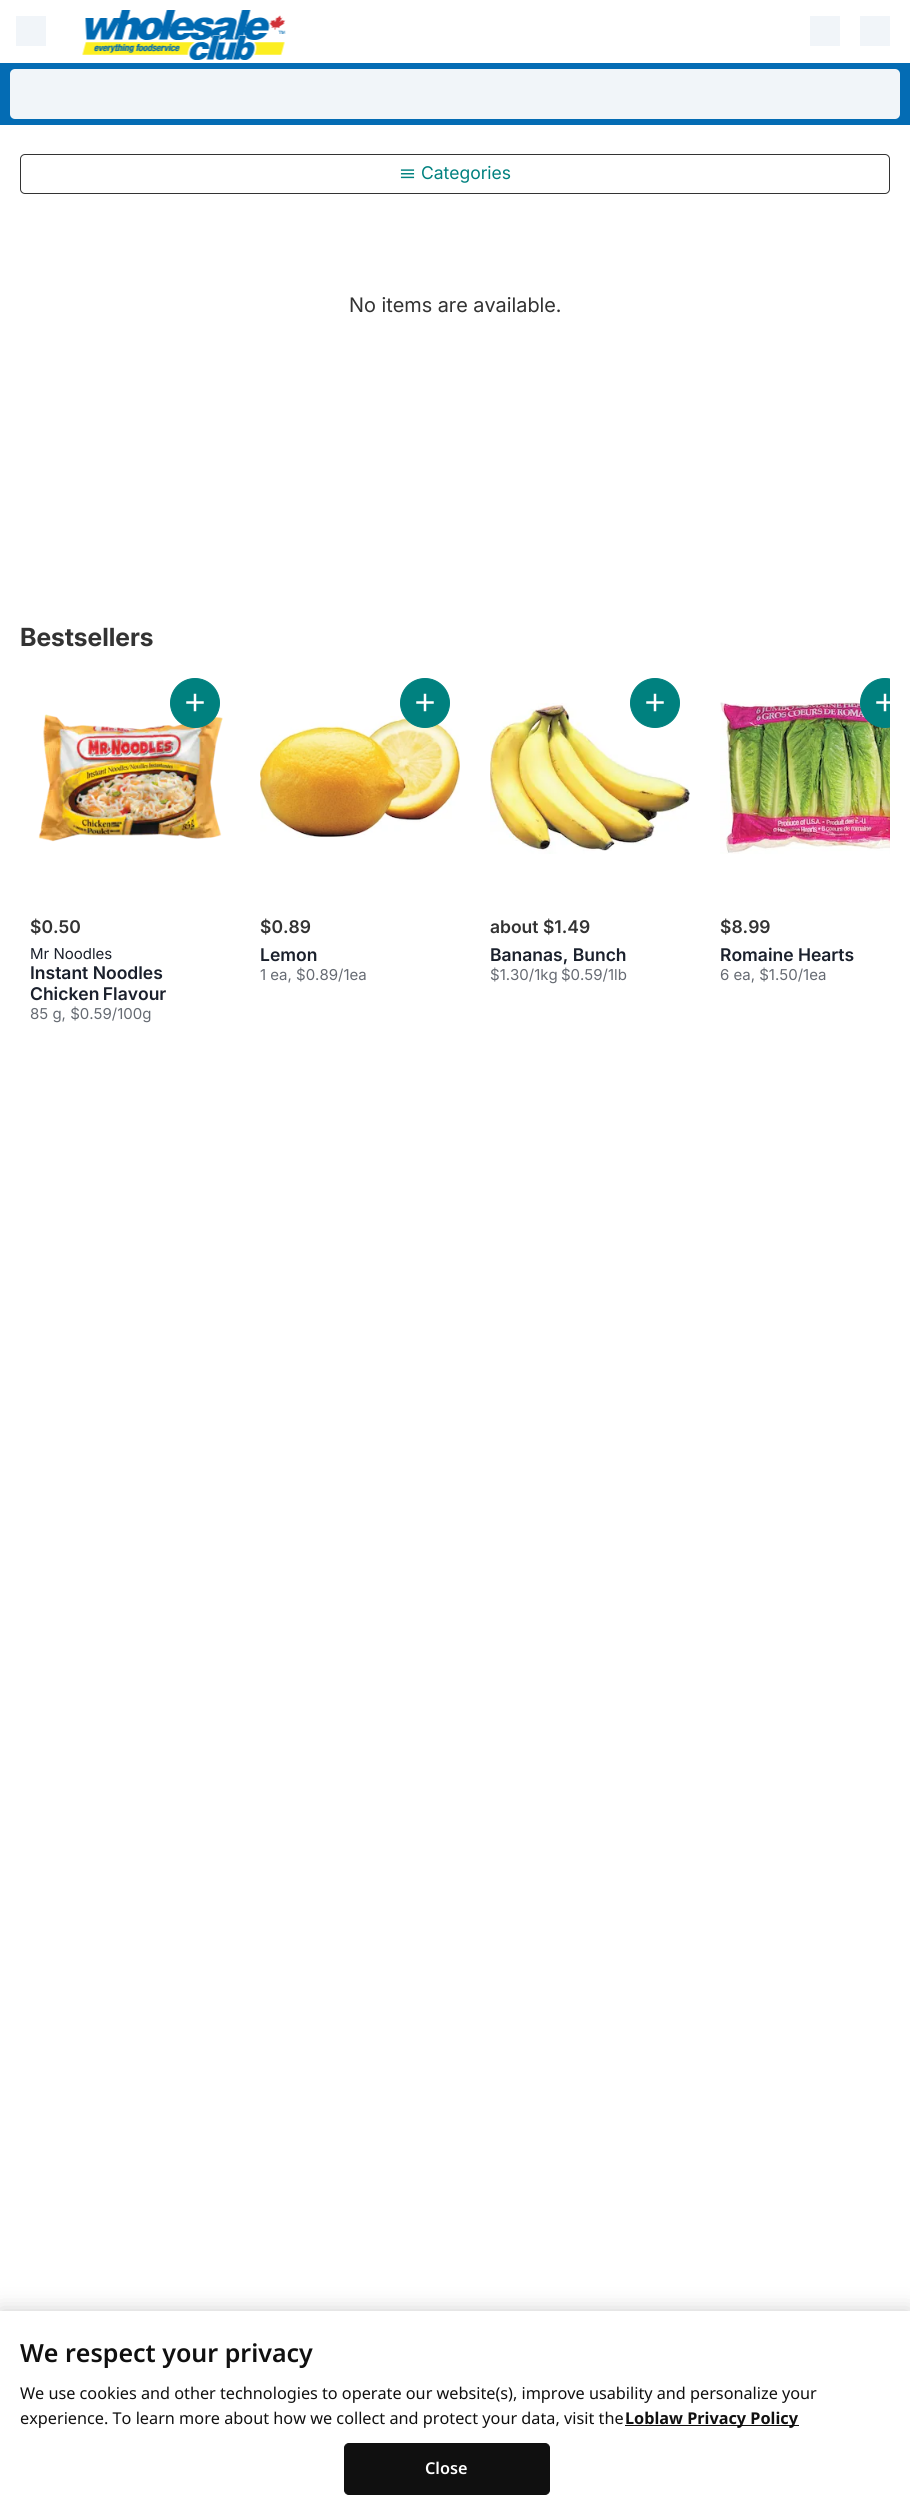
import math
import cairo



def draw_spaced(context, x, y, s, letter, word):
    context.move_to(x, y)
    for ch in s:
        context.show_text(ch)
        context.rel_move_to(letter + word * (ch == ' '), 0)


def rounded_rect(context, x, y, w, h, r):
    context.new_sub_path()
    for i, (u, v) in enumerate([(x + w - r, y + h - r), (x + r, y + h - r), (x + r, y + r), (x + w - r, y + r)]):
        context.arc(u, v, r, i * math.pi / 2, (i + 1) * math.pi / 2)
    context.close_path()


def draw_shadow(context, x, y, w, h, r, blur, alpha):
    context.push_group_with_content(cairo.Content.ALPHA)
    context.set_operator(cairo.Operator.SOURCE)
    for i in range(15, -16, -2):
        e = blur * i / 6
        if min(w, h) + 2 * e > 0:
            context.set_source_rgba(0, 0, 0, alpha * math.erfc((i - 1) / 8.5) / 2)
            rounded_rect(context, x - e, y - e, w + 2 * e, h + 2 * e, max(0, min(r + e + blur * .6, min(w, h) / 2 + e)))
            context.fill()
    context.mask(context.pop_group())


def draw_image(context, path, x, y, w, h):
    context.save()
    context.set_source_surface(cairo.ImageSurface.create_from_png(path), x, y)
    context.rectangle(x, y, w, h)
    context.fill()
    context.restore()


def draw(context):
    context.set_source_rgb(1, 1, 1)
    context.paint()
    context.set_source_rgb(241 / 255, 245 / 255, 249 / 255)
    context.rectangle(16, 16, 30, 30)
    context.fill()
    draw_image(context, "images/1.png", 82, 10, 204, 50)
    context.rectangle(810, 16, 30, 30)
    context.fill()
    context.rectangle(860, 16, 30, 30)
    context.fill()
    context.set_source_rgb(4 / 255, 108 / 255, 180 / 255)
    context.rectangle(0, 63, 910, 62)
    context.fill()
    context.set_source_rgb(241 / 255, 245 / 255, 249 / 255)
    rounded_rect(context, 10, 69, 890, 50, 5)
    context.fill()
    rounded_rect(context, 20.5, 154.5, 869, 39, 4.5)
    context.set_source_rgb(51 / 255, 51 / 255, 51 / 255)
    context.set_line_width(1)
    context.stroke()
    draw_image(context, "images/2.png", 400, 169, 15, 10)
    draw_image(context, "images/4.png", 38, 714, 185, 128)
    context.set_source_rgb(0, 129 / 255, 127 / 255)
    context.arc(195, 703, 24.5, 0, 2 * math.pi)
    context.fill_preserve()
    context.stroke()
    draw_image(context, "images/3.png", 186, 693, 18, 19)
    draw_image(context, "images/5.png", 260, 716, 200, 122)
    context.arc(425, 703, 24.5, 0, 2 * math.pi)
    context.fill_preserve()
    context.stroke()
    draw_image(context, "images/3.png", 416, 693, 18, 19)
    draw_image(context, "images/6.png", 490, 703, 200, 151)
    context.arc(655, 703, 24.5, 0, 2 * math.pi)
    context.fill_preserve()
    context.stroke()
    draw_image(context, "images/3.png", 646, 693, 18, 19)
    draw_image(context, "images/8.png", 720, 700, 170, 154)
    context.save()
    context.rectangle(20, 668, 870, 430)
    context.clip()
    context.arc(885, 703, 24.5, 0, 2 * math.pi)
    context.fill_preserve()
    context.stroke()
    context.restore()
    draw_image(context, "images/7.png", 876, 693, 14, 19)
    context.set_source_rgb(0, 0, 0)
    draw_shadow(context, 0, 2311, 910, 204, 0, 11, 0.2)
    context.set_source_rgb(1, 1, 1)
    context.rectangle(0, 2311, 910, 203)
    context.fill()
    context.set_source_rgb(16 / 255, 16 / 255, 16 / 255)
    context.rectangle(625, 2425, 174, 1)
    context.fill()
    rounded_rect(context, 344.5, 2443.5, 205, 51, 4.5)
    context.fill_preserve()
    context.stroke()
    context.select_font_face("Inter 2")
    context.set_font_size(17.5)
    context.set_source_rgb(0, 129 / 255, 127 / 255)
    context.move_to(421, 179)
    context.show_text("Categories")
    context.select_font_face("Inter")
    context.set_font_size(20)
    context.set_source_rgb(51 / 255, 51 / 255, 51 / 255)
    context.move_to(349, 312)
    context.show_text("No items are available.")
    context.select_font_face("Inter", cairo.FontSlant.NORMAL, cairo.FontWeight.BOLD)
    context.set_font_size(25)
    context.move_to(20, 646)
    context.show_text("Bestsellers")
    context.select_font_face("Inter SemiBold")
    context.set_font_size(17.5)
    context.move_to(30, 933)
    context.show_text("$0.50")
    context.select_font_face("Inter 2")
    context.set_font_size(15)
    context.set_source_rgb(26 / 255, 32 / 255, 44 / 255)
    context.move_to(30, 959)
    context.show_text("Mr Noodles")
    context.select_font_face("Inter SemiBold")
    context.set_font_size(17.5)
    context.move_to(30, 979)
    context.show_text("Instant Noodles")
    draw_spaced(context, 30, 1000, "Chicken Flavour", 0, -1)
    context.select_font_face("Inter 2")
    context.set_font_size(15)
    context.set_source_rgb(102 / 255, 107 / 255, 115 / 255)
    context.move_to(30, 1019)
    context.show_text("85 g, $0.59/100g")
    context.select_font_face("Inter SemiBold")
    context.set_font_size(17.5)
    context.set_source_rgb(51 / 255, 51 / 255, 51 / 255)
    context.move_to(260, 933)
    context.show_text("$0.89")
    context.set_source_rgb(26 / 255, 32 / 255, 44 / 255)
    context.move_to(260, 961)
    context.show_text("Lemon")
    context.select_font_face("Inter 2")
    context.set_font_size(15)
    context.set_source_rgb(102 / 255, 107 / 255, 115 / 255)
    context.move_to(260, 980)
    context.show_text("1 ea, $0.89/1ea")
    context.select_font_face("Inter SemiBold")
    context.set_font_size(17.5)
    context.set_source_rgb(51 / 255, 51 / 255, 51 / 255)
    context.move_to(490, 933)
    context.show_text("about $1.49")
    context.set_source_rgb(26 / 255, 32 / 255, 44 / 255)
    context.move_to(490, 961)
    context.show_text("Bananas, Bunch")
    context.select_font_face("Inter 2")
    context.set_font_size(15)
    context.set_source_rgb(102 / 255, 107 / 255, 115 / 255)
    draw_spaced(context, 490, 980, "$1.30/1kg $0.59/1lb", 0, -1)
    context.select_font_face("Inter SemiBold")
    context.set_font_size(17.5)
    context.set_source_rgb(51 / 255, 51 / 255, 51 / 255)
    context.move_to(720, 933)
    context.show_text("$8.99")
    context.set_source_rgb(26 / 255, 32 / 255, 44 / 255)
    context.move_to(720, 961)
    context.show_text("Romaine Hearts")
    context.select_font_face("Inter 2")
    context.set_font_size(15)
    context.set_source_rgb(102 / 255, 107 / 255, 115 / 255)
    context.move_to(720, 980)
    context.show_text("6 ea, $1.50/1ea")
    context.select_font_face("Noto Sans SemiBold")
    context.set_font_size(25)
    context.set_source_rgb(16 / 255, 16 / 255, 16 / 255)
    context.move_to(20, 2362)
    context.show_text("We respect your privacy")
    context.select_font_face("Noto Sans")
    context.set_font_size(16.25)
    draw_spaced(context, 20, 2399, "We use cookies and other technologies to operate our website(s), improve usability and personalize your", 0, -0.1)
    context.move_to(20, 2424)
    context.show_text("experience. To learn more about how we collect and protect your data, visit the")
    context.select_font_face("Noto Sans", cairo.FontSlant.NORMAL, cairo.FontWeight.BOLD)
    context.move_to(625, 2424)
    context.show_text("Loblaw Privacy Policy")
    context.select_font_face("Noto Sans SemiBold")
    context.set_source_rgb(1, 1, 1)
    context.move_to(425, 2474)
    context.show_text("Close")


surface = cairo.ImageSurface(cairo.Format.RGB24, 910, 2514)
context = cairo.Context(surface)
options = cairo.FontOptions()
options.set_hint_metrics(cairo.HintMetrics.OFF)
options.set_hint_style(cairo.HintStyle.NONE)
context.set_font_options(options)
context.set_miter_limit(4)
draw(context)
surface.write_to_png("out.png")
